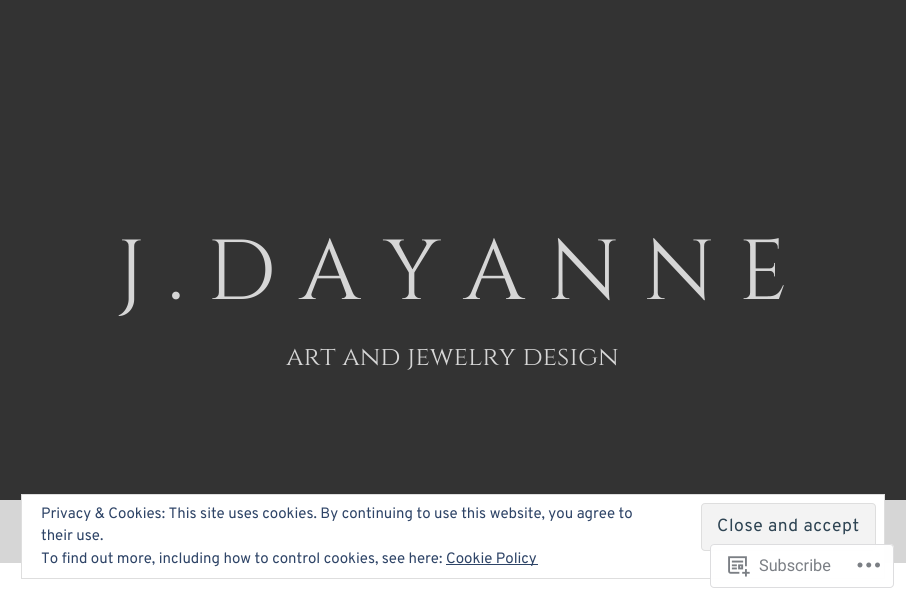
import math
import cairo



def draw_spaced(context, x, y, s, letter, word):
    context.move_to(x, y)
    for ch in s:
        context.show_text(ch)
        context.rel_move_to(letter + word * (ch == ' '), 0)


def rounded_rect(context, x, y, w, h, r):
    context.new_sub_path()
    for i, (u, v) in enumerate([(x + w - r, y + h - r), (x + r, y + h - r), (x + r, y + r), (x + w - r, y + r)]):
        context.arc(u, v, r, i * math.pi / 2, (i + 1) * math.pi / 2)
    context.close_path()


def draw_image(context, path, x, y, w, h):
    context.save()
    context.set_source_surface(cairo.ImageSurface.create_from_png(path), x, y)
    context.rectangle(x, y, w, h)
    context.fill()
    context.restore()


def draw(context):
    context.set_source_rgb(1, 1, 1)
    context.paint()
    context.set_source_rgb(51 / 255, 51 / 255, 51 / 255)
    context.rectangle(0, 0, 906, 500)
    context.fill()
    context.set_source_rgb(214 / 255, 214 / 255, 214 / 255)
    context.rectangle(0, 500, 906, 63)
    context.fill()
    context.set_source_rgb(1, 1, 1)
    context.rectangle(22, 495, 862, 68)
    context.fill()
    context.rectangle(21.5, 494.5, 863, 84)
    context.set_source_rgb(222 / 255, 222 / 255, 222 / 255)
    context.set_line_width(1)
    context.stroke()
    context.set_source_rgb(243 / 255, 243 / 255, 243 / 255)
    rounded_rect(context, 701.5, 503.5, 174, 47, 3.5)
    context.fill_preserve()
    context.set_source_rgb(222 / 255, 222 / 255, 222 / 255)
    context.stroke()
    context.set_source_rgb(46 / 255, 68 / 255, 103 / 255)
    context.rectangle(446, 564, 92, 1)
    context.fill()
    context.set_source_rgba(1, 1, 1, 0.98)
    rounded_rect(context, 710, 544, 184, 44, 4)
    context.fill()
    rounded_rect(context, 710.5, 544.5, 183, 43, 3.5)
    context.set_source_rgba(220 / 255, 220 / 255, 222 / 255, 0.98)
    context.stroke()
    draw_image(context, "images/1.png", 728, 556, 22, 21)
    draw_image(context, "images/2.png", 857, 562, 23, 6)
    context.select_font_face("Cinzel")
    context.set_font_size(85)
    context.set_source_rgb(214 / 255, 214 / 255, 214 / 255)
    draw_spaced(context, 117, 299, "J . D A Y A N N E", 1.25, 0)
    context.set_font_size(26.5)
    context.move_to(286, 365)
    context.show_text("art and jewelry design")
    context.select_font_face("Overpass")
    context.set_font_size(15)
    context.set_source_rgb(46 / 255, 68 / 255, 103 / 255)
    context.move_to(41, 518)
    context.show_text("Privacy & Cookies: This site uses cookies. By continuing to use this website, you agree to")
    context.move_to(41, 540)
    context.show_text("their use.")
    context.set_font_size(17.5)
    context.set_source_rgb(46 / 255, 68 / 255, 83 / 255)
    draw_spaced(context, 717, 531, "Close and accept", 0.6, 0)
    context.set_font_size(15)
    context.set_source_rgb(46 / 255, 68 / 255, 103 / 255)
    context.move_to(41, 563)
    context.show_text("To find out more, including how to control cookies, see here:")
    context.move_to(446, 563)
    context.show_text("Cookie Policy")
    context.select_font_face("Roboto")
    context.set_font_size(16.25)
    context.set_source_rgb(123 / 255, 127 / 255, 133 / 255)
    context.move_to(759, 571)
    context.show_text("Subscribe")


surface = cairo.ImageSurface(cairo.Format.RGB24, 906, 600)
context = cairo.Context(surface)
options = cairo.FontOptions()
options.set_hint_metrics(cairo.HintMetrics.OFF)
options.set_hint_style(cairo.HintStyle.NONE)
context.set_font_options(options)
context.set_miter_limit(4)
draw(context)
surface.write_to_png("out.png")
